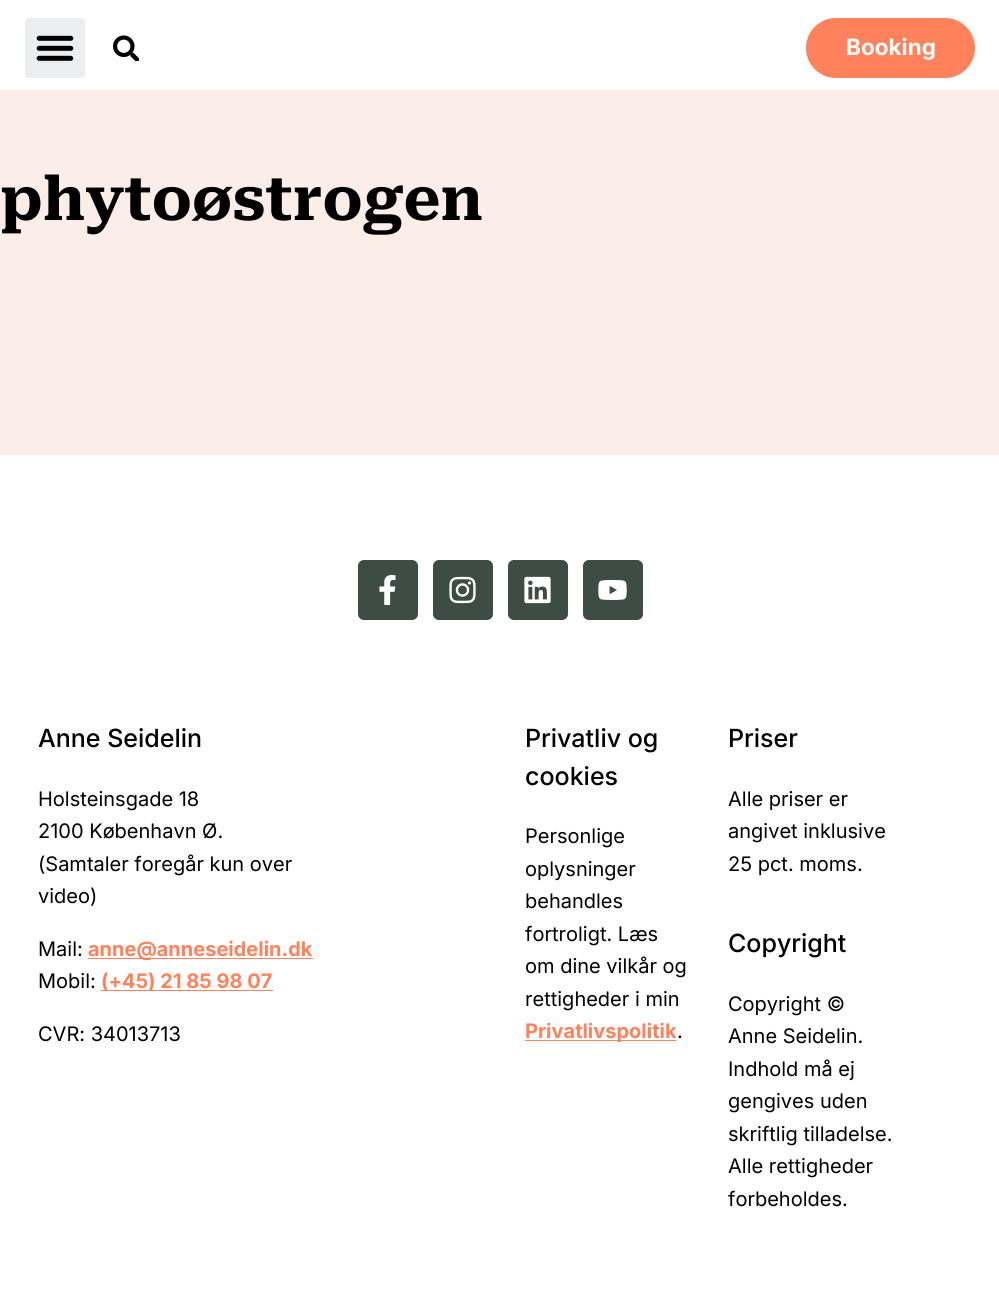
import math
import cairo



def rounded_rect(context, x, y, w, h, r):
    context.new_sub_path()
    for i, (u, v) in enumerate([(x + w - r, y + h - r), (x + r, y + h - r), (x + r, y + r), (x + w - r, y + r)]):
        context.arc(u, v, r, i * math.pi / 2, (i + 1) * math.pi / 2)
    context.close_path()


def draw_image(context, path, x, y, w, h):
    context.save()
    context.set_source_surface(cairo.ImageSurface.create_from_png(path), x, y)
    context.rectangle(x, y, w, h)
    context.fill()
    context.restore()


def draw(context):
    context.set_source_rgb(1, 1, 1)
    context.paint()
    context.set_source_rgb(235 / 255, 237 / 255, 239 / 255)
    rounded_rect(context, 25, 18, 60, 60, 4)
    context.fill()
    draw_image(context, "images/1.png", 36, 35, 38, 26)
    draw_image(context, "images/2.png", 113, 35, 26, 26)
    context.set_source_rgb(1, 130 / 255, 92 / 255)
    rounded_rect(context, 806, 18, 169, 60, 30)
    context.fill()
    context.set_source_rgb(251 / 255, 238 / 255, 233 / 255)
    context.rectangle(0, 90, 999, 365)
    context.fill()
    context.set_source_rgb(61 / 255, 76 / 255, 68 / 255)
    rounded_rect(context, 358, 560, 60, 60, 6)
    context.fill()
    draw_image(context, "images/3.png", 379, 575, 17, 30)
    rounded_rect(context, 433, 560, 60, 60, 6)
    context.fill()
    draw_image(context, "images/4.png", 449, 576, 27, 28)
    rounded_rect(context, 508, 560, 60, 60, 6)
    context.fill()
    draw_image(context, "images/5.png", 524, 576, 27, 28)
    rounded_rect(context, 583, 560, 60, 60, 6)
    context.fill()
    draw_image(context, "images/6.png", 598, 580, 29, 20)
    context.set_source_rgb(1, 130 / 255, 92 / 255)
    context.rectangle(88, 958, 225, 1)
    context.fill()
    context.rectangle(101, 990, 172, 1)
    context.fill()
    context.rectangle(525, 1040, 151, 1)
    context.fill()
    context.select_font_face("Inter", cairo.FontSlant.NORMAL, cairo.FontWeight.BOLD)
    context.set_font_size(22.5)
    context.set_source_rgb(1, 1, 1)
    context.move_to(846, 55)
    context.show_text("Booking")
    context.select_font_face("Roboto Serif", cairo.FontSlant.NORMAL, cairo.FontWeight.BOLD)
    context.set_font_size(60)
    context.set_source_rgb(0, 0, 0)
    context.move_to(0, 220)
    context.show_text("phytoøstrogen")
    context.select_font_face("Inter Medium")
    context.set_font_size(25)
    context.move_to(38, 747)
    context.show_text("Anne Seidelin")
    context.select_font_face("Inter")
    context.set_font_size(20)
    context.move_to(38, 806)
    context.show_text("Holsteinsgade 18")
    context.move_to(38, 838)
    context.show_text("2100 København Ø.")
    context.move_to(38, 871)
    context.show_text("(Samtaler foregår kun over")
    context.move_to(38, 903)
    context.show_text("video)")
    context.move_to(38, 956)
    context.show_text("Mail:")
    context.select_font_face("Inter", cairo.FontSlant.NORMAL, cairo.FontWeight.BOLD)
    context.set_source_rgb(1, 130 / 255, 92 / 255)
    context.move_to(88, 956)
    context.show_text("anne@anneseidelin.dk")
    context.select_font_face("Inter")
    context.set_source_rgb(0, 0, 0)
    context.move_to(38, 988)
    context.show_text("Mobil:")
    context.select_font_face("Inter", cairo.FontSlant.NORMAL, cairo.FontWeight.BOLD)
    context.set_source_rgb(1, 130 / 255, 92 / 255)
    context.move_to(101, 988)
    context.show_text("(+45) 21 85 98 07")
    context.select_font_face("Inter")
    context.set_source_rgb(0, 0, 0)
    context.move_to(38, 1041)
    context.show_text("CVR: 34013713")
    context.select_font_face("Inter Medium")
    context.set_font_size(25)
    context.move_to(525, 747)
    context.show_text("Privatliv og")
    context.move_to(525, 785)
    context.show_text("cookies")
    context.select_font_face("Inter")
    context.set_font_size(20)
    context.move_to(525, 843)
    context.show_text("Personlige")
    context.move_to(525, 876)
    context.show_text("oplysninger")
    context.move_to(525, 908)
    context.show_text("behandles")
    context.move_to(525, 941)
    context.show_text("fortroligt. Læs")
    context.move_to(525, 973)
    context.show_text("om dine vilkår og")
    context.move_to(525, 1006)
    context.show_text("rettigheder i min")
    context.select_font_face("Inter", cairo.FontSlant.NORMAL, cairo.FontWeight.BOLD)
    context.set_source_rgb(1, 130 / 255, 92 / 255)
    context.move_to(525, 1038)
    context.show_text("Privatlivspolitik")
    context.select_font_face("Inter")
    context.set_source_rgb(0, 0, 0)
    context.move_to(677, 1038)
    context.show_text(".")
    context.select_font_face("Inter Medium")
    context.set_font_size(25)
    context.move_to(728, 747)
    context.show_text("Priser")
    context.select_font_face("Inter")
    context.set_font_size(20)
    context.move_to(728, 806)
    context.show_text("Alle priser er")
    context.move_to(728, 838)
    context.show_text("angivet inklusive")
    context.move_to(728, 871)
    context.show_text("25 pct. moms.")
    context.select_font_face("Inter Medium")
    context.set_font_size(25)
    context.move_to(728, 952)
    context.show_text("Copyright")
    context.select_font_face("Inter")
    context.set_font_size(20)
    context.move_to(728, 1011)
    context.show_text("Copyright ©")
    context.move_to(728, 1043)
    context.show_text("Anne Seidelin.")
    context.move_to(728, 1076)
    context.show_text("Indhold må ej")
    context.move_to(728, 1108)
    context.show_text("gengives uden")
    context.move_to(728, 1141)
    context.show_text("skriftlig tilladelse.")
    context.move_to(728, 1173)
    context.show_text("Alle rettigheder")
    context.move_to(728, 1206)
    context.show_text("forbeholdes.")


surface = cairo.ImageSurface(cairo.Format.RGB24, 999, 1303)
context = cairo.Context(surface)
options = cairo.FontOptions()
options.set_hint_metrics(cairo.HintMetrics.OFF)
options.set_hint_style(cairo.HintStyle.NONE)
context.set_font_options(options)
context.set_miter_limit(4)
draw(context)
surface.write_to_png("out.png")
